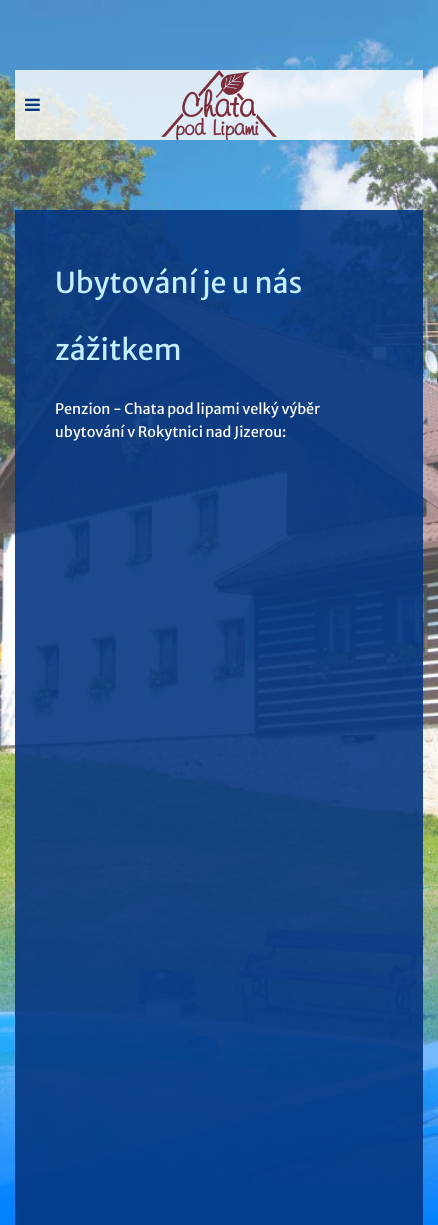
import math
import cairo



def draw_image(context, path, x, y, w, h):
    context.save()
    context.set_source_surface(cairo.ImageSurface.create_from_png(path), x, y)
    context.rectangle(x, y, w, h)
    context.fill()
    context.restore()


def draw(context):
    context.set_source_rgb(1, 1, 1)
    context.paint()
    draw_image(context, "images/1.png", 0, 0, 438, 1225)
    context.set_source_rgba(1, 1, 1, 0.8)
    context.rectangle(15, 70, 408, 70)
    context.fill()
    draw_image(context, "images/2.png", 25, 98, 15, 13)
    draw_image(context, "images/3.png", 161, 70, 116, 70)
    context.set_source_rgba(5 / 255, 55 / 255, 130 / 255, 0.9)
    context.rectangle(15, 210, 408, 1015)
    context.fill()
    context.select_font_face("Merriweather Sans")
    context.set_font_size(28.75)
    context.set_source_rgb(194 / 255, 238 / 255, 1)
    context.move_to(55, 293)
    context.show_text("Ubytování je u nás")
    context.move_to(55, 360)
    context.show_text("zážitkem")
    context.set_font_size(14.4)
    context.set_source_rgb(1, 1, 1)
    context.move_to(55, 414)
    context.show_text("Penzion - Chata pod lipami velký výběr")
    context.move_to(55, 437)
    context.show_text("ubytování v Rokytnici nad Jizerou:")


surface = cairo.ImageSurface(cairo.Format.RGB24, 438, 1225)
context = cairo.Context(surface)
options = cairo.FontOptions()
options.set_hint_metrics(cairo.HintMetrics.OFF)
options.set_hint_style(cairo.HintStyle.NONE)
context.set_font_options(options)
context.set_miter_limit(4)
draw(context)
surface.write_to_png("out.png")
